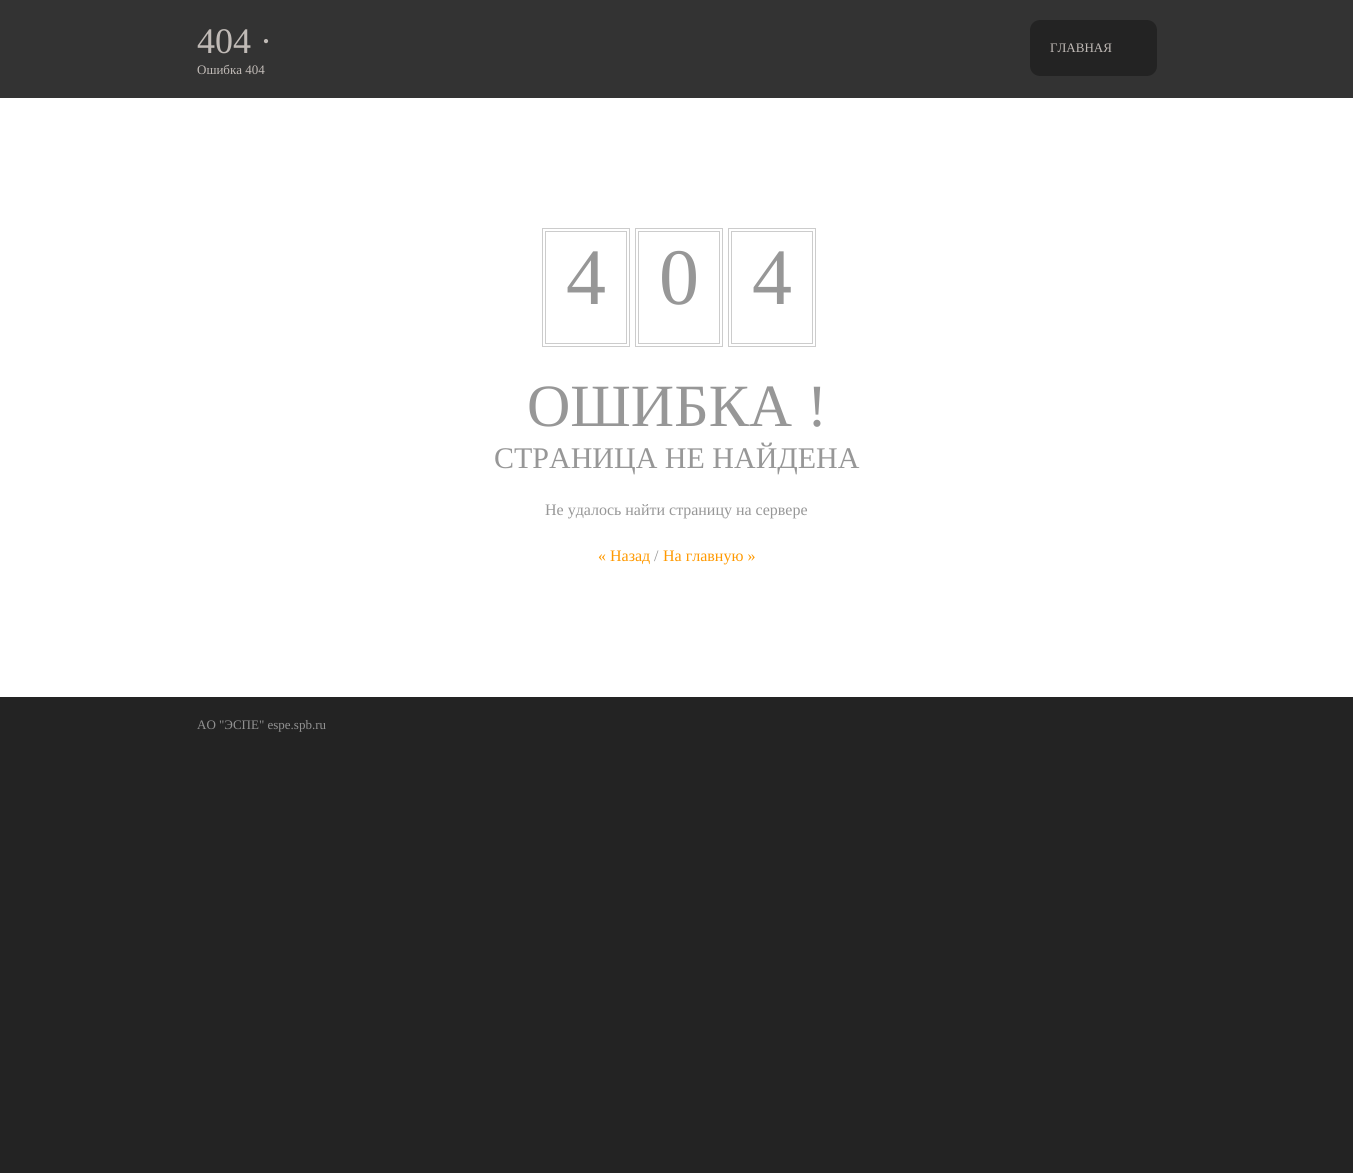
import math
import cairo



def rounded_rect(context, x, y, w, h, r):
    context.new_sub_path()
    for i, (u, v) in enumerate([(x + w - r, y + h - r), (x + r, y + h - r), (x + r, y + r), (x + w - r, y + r)]):
        context.arc(u, v, r, i * math.pi / 2, (i + 1) * math.pi / 2)
    context.close_path()


def draw(context):
    context.set_source_rgb(35 / 255, 35 / 255, 35 / 255)
    context.paint()
    context.set_source_rgb(51 / 255, 51 / 255, 51 / 255)
    context.rectangle(0, 0, 1353, 98)
    context.fill()
    context.set_source_rgb(35 / 255, 35 / 255, 35 / 255)
    rounded_rect(context, 1030, 20, 127, 56, 10)
    context.fill()
    context.set_source_rgb(1, 1, 1)
    context.rectangle(0, 98, 1353, 599)
    context.fill()
    context.rectangle(542.5, 228.5, 87, 118)
    context.set_source_rgb(204 / 255, 204 / 255, 204 / 255)
    context.set_line_width(1)
    context.stroke()
    context.rectangle(545.5, 231.5, 81, 112)
    context.stroke()
    context.rectangle(635.5, 228.5, 87, 118)
    context.stroke()
    context.rectangle(638.5, 231.5, 81, 112)
    context.stroke()
    context.rectangle(728.5, 228.5, 87, 118)
    context.stroke()
    context.rectangle(731.5, 231.5, 81, 112)
    context.stroke()
    context.select_font_face("Liberation Serif")
    context.set_font_size(36)
    context.set_source_rgb(192 / 255, 186 / 255, 182 / 255)
    context.move_to(197, 53)
    context.show_text("404 ·")
    context.set_font_size(13)
    context.move_to(197, 74)
    context.show_text("Ошибка 404")
    context.move_to(1050, 52)
    context.show_text("ГЛАВНАЯ")
    context.set_font_size(80)
    context.set_source_rgb(151 / 255, 151 / 255, 151 / 255)
    context.move_to(566, 304)
    context.show_text("4")
    context.move_to(659, 304)
    context.show_text("0")
    context.move_to(752, 304)
    context.show_text("4")
    context.set_font_size(60)
    context.move_to(527, 426)
    context.show_text("ОШИБКА !")
    context.set_font_size(30)
    context.move_to(494, 468)
    context.show_text("СТРАНИЦА НЕ НАЙДЕНА")
    context.set_font_size(16)
    context.move_to(545, 515)
    context.show_text("Не удалось найти страницу на сервере")
    context.set_source_rgb(1, 153 / 255, 0)
    context.move_to(598, 561)
    context.show_text("« Назад")
    context.set_source_rgb(151 / 255, 151 / 255, 151 / 255)
    context.move_to(654, 561)
    context.show_text("/")
    context.set_source_rgb(1, 153 / 255, 0)
    context.move_to(663, 561)
    context.show_text("На главную »")
    context.set_font_size(13)
    context.set_source_rgb(145 / 255, 145 / 255, 145 / 255)
    context.move_to(197, 729)
    context.show_text("АО \"ЭСПЕ\" espe.spb.ru")


surface = cairo.ImageSurface(cairo.Format.RGB24, 1353, 1173)
context = cairo.Context(surface)
options = cairo.FontOptions()
options.set_hint_metrics(cairo.HintMetrics.OFF)
options.set_hint_style(cairo.HintStyle.NONE)
context.set_font_options(options)
context.set_miter_limit(4)
draw(context)
surface.write_to_png("out.png")
